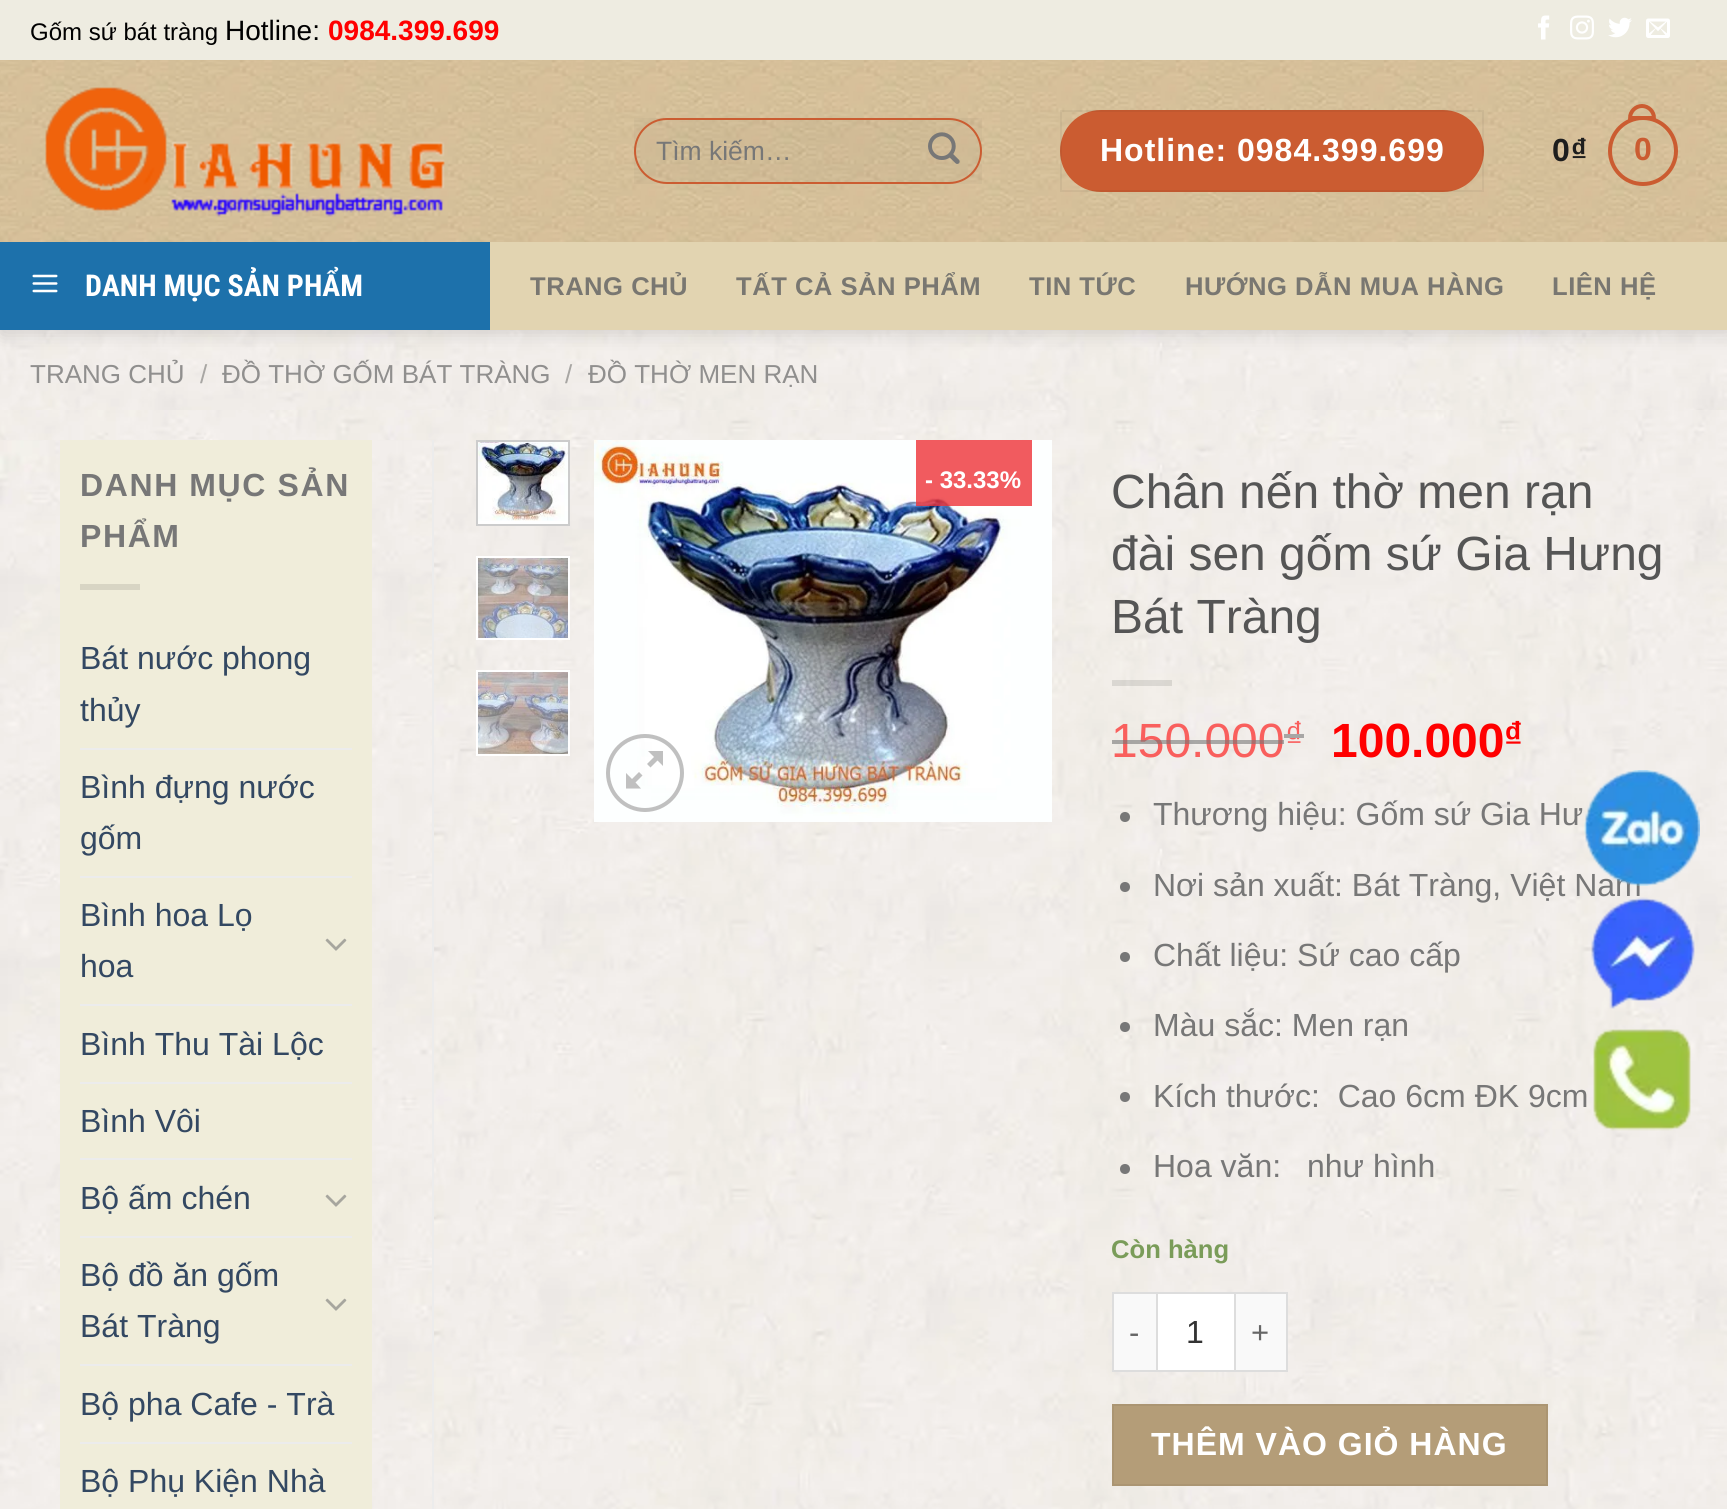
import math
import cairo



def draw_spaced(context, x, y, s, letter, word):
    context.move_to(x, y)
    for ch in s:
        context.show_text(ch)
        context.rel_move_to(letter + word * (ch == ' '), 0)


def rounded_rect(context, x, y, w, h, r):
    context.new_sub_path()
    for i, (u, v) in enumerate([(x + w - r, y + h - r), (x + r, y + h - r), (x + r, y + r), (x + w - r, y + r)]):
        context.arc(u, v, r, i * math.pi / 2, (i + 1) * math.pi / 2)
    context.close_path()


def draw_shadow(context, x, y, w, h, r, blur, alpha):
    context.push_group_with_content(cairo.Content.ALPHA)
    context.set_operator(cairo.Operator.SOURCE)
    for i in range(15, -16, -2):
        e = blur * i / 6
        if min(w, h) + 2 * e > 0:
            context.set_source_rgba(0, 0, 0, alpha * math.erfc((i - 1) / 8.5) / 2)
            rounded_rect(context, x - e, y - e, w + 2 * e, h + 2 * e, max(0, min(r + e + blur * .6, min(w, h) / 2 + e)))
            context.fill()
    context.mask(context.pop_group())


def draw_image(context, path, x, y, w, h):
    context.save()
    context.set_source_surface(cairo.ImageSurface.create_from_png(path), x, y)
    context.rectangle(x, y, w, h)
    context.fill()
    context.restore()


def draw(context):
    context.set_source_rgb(1, 1, 1)
    context.paint()
    draw_image(context, "images/1.png", 0, 330, 1727, 80)
    context.set_source_rgb(0, 0, 0)
    draw_shadow(context, 2, 2, 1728, 330, 0, 10, 0.15)
    context.set_source_rgb(238 / 255, 236 / 255, 225 / 255)
    context.rectangle(0, 0, 1727, 60)
    context.fill()
    draw_image(context, "images/2.png", 1538, 15, 12, 25)
    draw_image(context, "images/3.png", 1570, 15, 24, 25)
    draw_image(context, "images/4.png", 1608, 17, 24, 21)
    draw_image(context, "images/5.png", 1646, 18, 24, 20)
    draw_image(context, "images/6.png", 0, 60, 1727, 182)
    draw_image(context, "images/7.png", 45, 87, 400, 130)
    context.set_source_rgba(0, 0, 0, 0.03)
    context.rectangle(634, 118, 348, 66)
    context.fill()
    rounded_rect(context, 635, 119, 346, 64, 32)
    context.set_source_rgb(203 / 255, 92 / 255, 49 / 255)
    context.stroke()
    draw_image(context, "images/8.png", 928, 132, 32, 32)
    rounded_rect(context, 1060, 110, 424, 82, 41)
    context.fill()
    context.rectangle(1061, 111, 422, 80)
    context.set_source_rgba(0, 0, 0, 0.05)
    context.stroke()
    context.arc(1643, 151, 33, 0, 2 * math.pi)
    context.set_source_rgb(203 / 255, 92 / 255, 49 / 255)
    context.set_line_width(4)
    context.stroke()
    context.new_path()
    context.move_to(1642, 106)
    context.curve_to(1648.5, 106, 1654, 111.5, 1654, 118)
    context.line_to(1630, 118)
    context.curve_to(1630, 111.5, 1635.5, 106, 1642, 106)
    context.close_path()
    context.stroke()
    context.set_source_rgb(226 / 255, 212 / 255, 177 / 255)
    context.rectangle(490, 242, 1237, 88)
    context.fill()
    context.set_source_rgb(29 / 255, 113 / 255, 171 / 255)
    context.rectangle(0, 242, 490, 88)
    context.fill()
    draw_image(context, "images/9.png", 32, 274, 26, 19)
    draw_image(context, "images/10.png", 0, 410, 1727, 1099)
    draw_image(context, "images/11.png", 0, 440, 432, 1069)
    context.set_source_rgb(240 / 255, 237 / 255, 218 / 255)
    context.rectangle(60, 440, 312, 1069)
    context.fill()
    context.set_source_rgb(216 / 255, 213 / 255, 196 / 255)
    context.rectangle(80, 584, 60, 6)
    context.fill()
    context.set_source_rgb(236 / 255, 236 / 255, 236 / 255)
    context.rectangle(80, 748, 272, 2)
    context.fill()
    context.rectangle(80, 876, 272, 2)
    context.fill()
    draw_image(context, "images/12.png", 325, 938, 22, 13)
    context.rectangle(80, 1004, 272, 2)
    context.fill()
    context.rectangle(80, 1082, 272, 2)
    context.fill()
    context.rectangle(80, 1158, 272, 2)
    context.fill()
    draw_image(context, "images/12.png", 325, 1194, 22, 13)
    context.rectangle(80, 1236, 272, 2)
    context.fill()
    draw_image(context, "images/12.png", 325, 1298, 22, 13)
    context.rectangle(80, 1364, 272, 2)
    context.fill()
    context.rectangle(80, 1442, 272, 2)
    context.fill()
    context.rectangle(432, 440, 2, 1069)
    context.fill()
    context.set_source_rgb(1, 1, 1)
    context.rectangle(478, 521, 90, 3)
    context.fill()
    context.rectangle(477, 441, 92, 84)
    context.set_source_rgb(204 / 255, 204 / 255, 204 / 255)
    context.set_line_width(2)
    context.stroke()
    draw_image(context, "images/13.png", 478, 442, 90, 79)
    context.set_source_rgb(1, 1, 1)
    context.rectangle(476, 556, 94, 84)
    context.fill()
    draw_image(context, "images/14.png", 478, 558, 90, 80)
    context.rectangle(476, 670, 94, 86)
    context.fill()
    draw_image(context, "images/15.png", 478, 672, 90, 82)
    draw_image(context, "images/16.png", 594, 440, 458, 382)
    context.set_source_rgba(237 / 255, 50 / 255, 55 / 255, 0.8)
    context.rectangle(916, 440, 116, 66)
    context.fill()
    context.arc(645, 773, 37, 0, 2 * math.pi)
    context.set_source_rgb(192 / 255, 192 / 255, 192 / 255)
    context.set_line_width(4)
    context.stroke()
    context.new_path()
    context.move_to(663, 751)
    context.line_to(663, 766)
    context.line_to(657.5, 760.5)
    context.line_to(650.5, 767.5)
    context.line_to(647, 764)
    context.line_to(654, 757)
    context.line_to(648, 751)
    context.close_path()
    context.move_to(642.5, 775.5)
    context.line_to(635.5, 782.5)
    context.line_to(641, 788.5)
    context.line_to(626, 788.5)
    context.line_to(626, 773)
    context.line_to(632, 779)
    context.line_to(639, 772)
    context.close_path()
    context.fill()
    context.set_source_rgba(0, 0, 0, 0.1)
    context.rectangle(1112, 680, 60, 6)
    context.fill()
    context.set_source_rgb(119 / 255, 119 / 255, 119 / 255)
    context.arc(1125, 817, 5, 0, 2 * math.pi)
    context.fill()
    context.arc(1125, 887, 5, 0, 2 * math.pi)
    context.fill()
    context.arc(1125, 957, 5, 0, 2 * math.pi)
    context.fill()
    context.arc(1125, 1027, 5, 0, 2 * math.pi)
    context.fill()
    context.arc(1125, 1097, 5, 0, 2 * math.pi)
    context.fill()
    context.arc(1125, 1169, 5, 0, 2 * math.pi)
    context.fill()
    context.set_source_rgb(249 / 255, 249 / 255, 249 / 255)
    context.rectangle(1114, 1294, 42, 76)
    context.fill()
    context.set_source_rgb(221 / 255, 221 / 255, 221 / 255)
    context.rectangle(1112, 1292, 44, 2)
    context.fill()
    context.rectangle(1112, 1370, 44, 2)
    context.fill()
    context.rectangle(1112, 1292, 2, 80)
    context.fill()
    context.set_source_rgb(1, 1, 1)
    context.rectangle(1157, 1293, 78, 78)
    context.fill_preserve()
    context.set_source_rgb(221 / 255, 221 / 255, 221 / 255)
    context.set_line_width(2)
    context.stroke()
    context.set_source_rgb(249 / 255, 249 / 255, 249 / 255)
    context.rectangle(1236, 1294, 50, 76)
    context.fill()
    context.set_source_rgb(221 / 255, 221 / 255, 221 / 255)
    context.rectangle(1236, 1292, 52, 2)
    context.fill()
    context.rectangle(1286, 1292, 2, 80)
    context.fill()
    context.rectangle(1236, 1370, 52, 2)
    context.fill()
    context.set_source_rgb(180 / 255, 157 / 255, 120 / 255)
    context.rectangle(1113, 1405, 434, 80)
    context.fill_preserve()
    context.set_source_rgb(171 / 255, 149 / 255, 114 / 255)
    context.stroke()
    draw_image(context, "images/19.png", 1593, 1029, 98, 102)
    context.select_font_face("Liberation Sans")
    context.set_font_size(24)
    context.set_source_rgb(0, 0, 0)
    context.move_to(30, 40)
    context.show_text("Gốm sứ bát tràng")
    context.set_font_size(28)
    context.move_to(225, 40)
    context.show_text("Hotline:")
    context.select_font_face("Liberation Sans", cairo.FontSlant.NORMAL, cairo.FontWeight.BOLD)
    context.set_source_rgb(1, 0, 0)
    context.move_to(328, 40)
    context.show_text("0984.399.699")
    context.select_font_face("Liberation Sans")
    context.set_font_size(26.5)
    context.set_source_rgb(119 / 255, 119 / 255, 119 / 255)
    context.move_to(656, 160)
    context.show_text("Tìm kiếm…")
    context.select_font_face("Liberation Sans", cairo.FontSlant.NORMAL, cairo.FontWeight.BOLD)
    context.set_font_size(32)
    context.set_source_rgb(1, 1, 1)
    draw_spaced(context, 1100, 161, "Hotline: 0984.399.699", 1, 0)
    context.set_source_rgb(30 / 255, 30 / 255, 30 / 255)
    draw_spaced(context, 1552, 161, "0₫", 1, 0)
    context.set_source_rgb(203 / 255, 92 / 255, 49 / 255)
    draw_spaced(context, 1634, 160, "0", 1, 0)
    context.select_font_face("Roboto Condensed", cairo.FontSlant.NORMAL, cairo.FontWeight.BOLD)
    context.set_font_size(30)
    context.set_source_rgb(1, 1, 1)
    context.move_to(85, 296)
    context.show_text("DANH MỤC SẢN PHẨM")
    context.select_font_face("Liberation Sans", cairo.FontSlant.NORMAL, cairo.FontWeight.BOLD)
    context.set_font_size(25.6)
    context.set_source_rgb(121 / 255, 119 / 255, 113 / 255)
    draw_spaced(context, 530, 295, "TRANG CHỦ", 0.5, 0)
    draw_spaced(context, 736, 295, "TẤT CẢ SẢN PHẨM", 0.5, 0)
    draw_spaced(context, 1029, 295, "TIN TỨC", 0.5, 0)
    draw_spaced(context, 1185, 295, "HƯỚNG DẪN MUA HÀNG", 0.5, 0)
    draw_spaced(context, 1552, 295, "LIÊN HỆ", 0.5, 0)
    context.select_font_face("Liberation Sans")
    context.set_font_size(26)
    context.set_source_rgb(144 / 255, 143 / 255, 142 / 255)
    context.move_to(30, 383)
    context.show_text("TRANG CHỦ")
    context.set_source_rgb(168 / 255, 166 / 255, 163 / 255)
    context.move_to(200, 383)
    context.show_text("/")
    context.set_source_rgb(144 / 255, 143 / 255, 142 / 255)
    context.move_to(222, 383)
    context.show_text("ĐỒ THỜ GỐM BÁT TRÀNG")
    context.set_source_rgb(168 / 255, 166 / 255, 163 / 255)
    context.move_to(565, 383)
    context.show_text("/")
    context.set_source_rgb(144 / 255, 143 / 255, 142 / 255)
    context.move_to(588, 383)
    context.show_text("ĐỒ THỜ MEN RẠN")
    context.select_font_face("Liberation Sans", cairo.FontSlant.NORMAL, cairo.FontWeight.BOLD)
    context.set_font_size(32)
    context.set_source_rgb(119 / 255, 119 / 255, 119 / 255)
    draw_spaced(context, 80, 496, "DANH MỤC SẢN", 1.6, 0)
    draw_spaced(context, 80, 547, "PHẨM", 1.6, 0)
    context.select_font_face("Liberation Sans")
    context.set_source_rgb(51 / 255, 72 / 255, 98 / 255)
    context.move_to(80, 669)
    context.show_text("Bát nước phong")
    context.move_to(80, 721)
    context.show_text("thủy")
    context.move_to(80, 798)
    context.show_text("Bình đựng nước")
    context.move_to(80, 849)
    context.show_text("gốm")
    context.move_to(80, 926)
    context.show_text("Bình hoa Lọ")
    context.move_to(80, 977)
    context.show_text("hoa")
    context.move_to(80, 1055)
    context.show_text("Bình Thu Tài Lộc")
    context.move_to(80, 1132)
    context.show_text("Bình Vôi")
    context.move_to(80, 1209)
    context.show_text("Bộ ấm chén")
    context.move_to(80, 1286)
    context.show_text("Bộ đồ ăn gốm")
    context.move_to(80, 1337)
    context.show_text("Bát Tràng")
    context.move_to(80, 1415)
    context.show_text("Bộ pha Cafe - Trà")
    context.move_to(80, 1492)
    context.show_text("Bộ Phụ Kiện Nhà")
    context.select_font_face("Liberation Sans", cairo.FontSlant.NORMAL, cairo.FontWeight.BOLD)
    context.set_font_size(24)
    context.set_source_rgb(1, 1, 1)
    context.move_to(925, 488)
    context.show_text("- 33.33%")
    context.select_font_face("Liberation Sans")
    context.set_font_size(48)
    context.set_source_rgb(85 / 255, 85 / 255, 85 / 255)
    context.move_to(1111, 508)
    context.show_text("Chân nến thờ men rạn")
    context.move_to(1111, 570)
    context.show_text("đài sen gốm sứ Gia Hưng")
    context.move_to(1111, 633)
    context.show_text("Bát Tràng")
    context.set_source_rgb(249 / 255, 95 / 255, 93 / 255)
    context.move_to(1111, 757)
    context.show_text("150.000")
    context.set_source_rgba(119 / 255, 119 / 255, 119 / 255, 0.6)
    context.rectangle(1112, 740, 172, 4)
    context.fill()
    context.set_font_size(36)
    context.set_source_rgb(249 / 255, 95 / 255, 93 / 255)
    context.move_to(1285, 747)
    context.show_text("₫")
    context.set_source_rgb(168 / 255, 166 / 255, 165 / 255)
    context.rectangle(1284, 734, 20, 4)
    context.fill()
    context.select_font_face("Liberation Sans", cairo.FontSlant.NORMAL, cairo.FontWeight.BOLD)
    context.set_font_size(48)
    context.set_source_rgb(1, 0, 0)
    context.move_to(1331, 757)
    context.show_text("100.000")
    context.set_font_size(36)
    context.move_to(1504, 747)
    context.show_text("₫")
    context.select_font_face("Liberation Sans")
    context.set_font_size(32)
    context.set_source_rgb(119 / 255, 119 / 255, 119 / 255)
    context.move_to(1153, 825)
    context.show_text("Thương hiệu: Gốm sứ Gia Hư")
    context.move_to(1153, 896)
    context.show_text("Nơi sản xuất: Bát Tràng, Việt Nam")
    context.move_to(1153, 966)
    context.show_text("Chất liệu: Sứ cao cấp")
    context.move_to(1153, 1036)
    context.show_text("Màu sắc: Men rạn")
    context.move_to(1153, 1107)
    context.show_text("Kích thước:  Cao 6cm ĐK 9cm")
    context.move_to(1153, 1177)
    context.show_text("Hoa văn:")
    context.move_to(1307, 1177)
    context.show_text("như hình")
    context.select_font_face("Liberation Sans", cairo.FontSlant.NORMAL, cairo.FontWeight.BOLD)
    context.set_font_size(25.6)
    context.set_source_rgb(122 / 255, 156 / 255, 89 / 255)
    context.move_to(1111, 1258)
    context.show_text("Còn hàng")
    context.select_font_face("Liberation Sans")
    context.set_font_size(31)
    context.set_source_rgb(102 / 255, 102 / 255, 102 / 255)
    draw_spaced(context, 1129, 1343, "-", 1, 0)
    context.set_font_size(32)
    context.set_source_rgb(51 / 255, 51 / 255, 51 / 255)
    context.move_to(1186, 1343)
    context.show_text("1")
    context.set_font_size(31)
    context.set_source_rgb(102 / 255, 102 / 255, 102 / 255)
    draw_spaced(context, 1251, 1343, "+", 1, 0)
    context.select_font_face("Liberation Sans", cairo.FontSlant.NORMAL, cairo.FontWeight.BOLD)
    context.set_font_size(32)
    context.set_source_rgb(1, 1, 1)
    draw_spaced(context, 1151, 1455, "THÊM VÀO GIỎ HÀNG", 1, 0)
    draw_image(context, "images/17.png", 1584, 770, 116, 116)
    draw_image(context, "images/18.png", 1591, 897, 104, 112)


surface = cairo.ImageSurface(cairo.Format.RGB24, 1727, 1509)
context = cairo.Context(surface)
options = cairo.FontOptions()
options.set_hint_metrics(cairo.HintMetrics.OFF)
options.set_hint_style(cairo.HintStyle.NONE)
context.set_font_options(options)
context.set_miter_limit(4)
draw(context)
surface.write_to_png("out.png")
